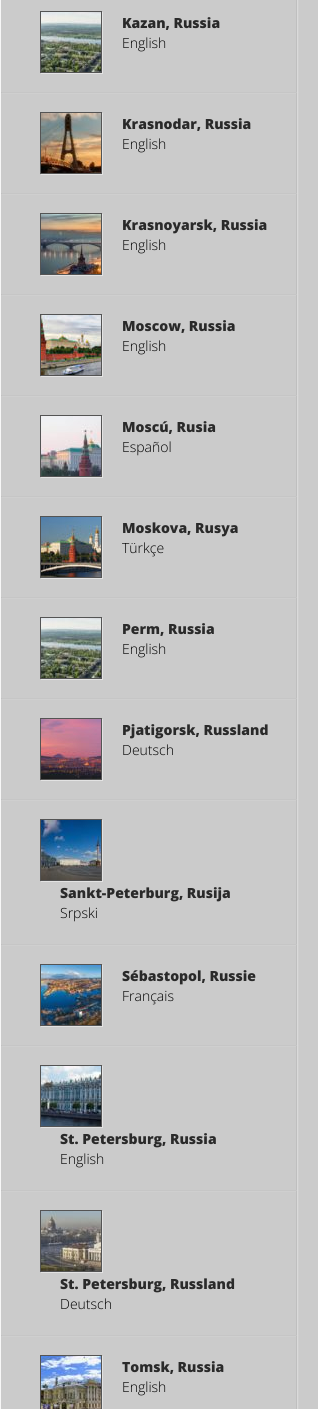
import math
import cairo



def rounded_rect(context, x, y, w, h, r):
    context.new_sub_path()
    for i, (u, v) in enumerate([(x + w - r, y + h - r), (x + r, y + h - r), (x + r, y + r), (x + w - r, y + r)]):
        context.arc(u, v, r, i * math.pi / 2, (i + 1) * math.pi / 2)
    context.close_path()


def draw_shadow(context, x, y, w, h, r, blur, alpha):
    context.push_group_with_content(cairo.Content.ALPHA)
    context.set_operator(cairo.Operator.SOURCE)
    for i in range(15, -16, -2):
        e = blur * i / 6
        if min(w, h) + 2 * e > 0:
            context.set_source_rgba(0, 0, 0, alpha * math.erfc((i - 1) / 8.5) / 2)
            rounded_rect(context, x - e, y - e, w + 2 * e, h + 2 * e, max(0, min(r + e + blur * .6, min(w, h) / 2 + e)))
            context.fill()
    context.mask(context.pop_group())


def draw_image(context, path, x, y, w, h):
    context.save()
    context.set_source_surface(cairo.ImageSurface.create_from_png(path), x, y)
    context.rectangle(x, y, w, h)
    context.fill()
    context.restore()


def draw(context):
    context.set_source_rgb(247 / 255, 247 / 255, 247 / 255)
    context.paint()
    context.set_source_rgb(203 / 255, 203 / 255, 203 / 255)
    context.rectangle(1, 0, 317, 1409)
    context.fill()
    context.save()
    context.set_fill_rule(cairo.FillRule.EVEN_ODD)
    context.new_path()
    context.move_to(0, 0)
    context.line_to(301, 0)
    context.line_to(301, 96)
    context.line_to(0, 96)
    context.close_path()
    context.move_to(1, -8)
    context.line_to(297, -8)
    context.line_to(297, 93)
    context.line_to(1, 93)
    context.close_path()
    context.clip()
    context.set_source_rgb(220 / 255, 220 / 255, 220 / 255)
    draw_shadow(context, 2, -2, 296, 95, 0, 0.5, 1)
    context.restore()
    context.set_source_rgb(191 / 255, 191 / 255, 191 / 255)
    context.rectangle(296, 0, 1, 93)
    context.fill()
    context.rectangle(1, 92, 296, 1)
    context.fill()
    context.set_source_rgb(227 / 255, 227 / 255, 227 / 255)
    context.new_path()
    context.move_to(41, 73)
    context.line_to(41, 74)
    context.line_to(103, 74)
    context.line_to(103, 12)
    context.line_to(102, 12)
    context.line_to(102, 73)
    context.close_path()
    context.fill()
    context.rectangle(40.5, 11.5, 61, 61)
    context.set_source_rgb(84 / 255, 84 / 255, 84 / 255)
    context.set_line_width(1)
    context.stroke()
    draw_image(context, "images/1.png", 41, 12, 60, 60)
    context.save()
    context.set_fill_rule(cairo.FillRule.EVEN_ODD)
    context.new_path()
    context.move_to(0, 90)
    context.line_to(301, 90)
    context.line_to(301, 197)
    context.line_to(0, 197)
    context.close_path()
    context.move_to(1, 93)
    context.line_to(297, 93)
    context.line_to(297, 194)
    context.line_to(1, 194)
    context.close_path()
    context.clip()
    context.set_source_rgb(220 / 255, 220 / 255, 220 / 255)
    draw_shadow(context, 2, 93, 296, 101, 0, 0.5, 1)
    context.restore()
    context.set_source_rgb(191 / 255, 191 / 255, 191 / 255)
    context.rectangle(296, 93, 1, 101)
    context.fill()
    context.rectangle(1, 193, 296, 1)
    context.fill()
    context.set_source_rgb(227 / 255, 227 / 255, 227 / 255)
    context.new_path()
    context.move_to(41, 174)
    context.line_to(41, 175)
    context.line_to(103, 175)
    context.line_to(103, 113)
    context.line_to(102, 113)
    context.line_to(102, 174)
    context.close_path()
    context.fill()
    context.rectangle(40.5, 112.5, 61, 61)
    context.set_source_rgb(84 / 255, 84 / 255, 84 / 255)
    context.stroke()
    draw_image(context, "images/2.png", 41, 113, 60, 60)
    context.save()
    context.set_fill_rule(cairo.FillRule.EVEN_ODD)
    context.new_path()
    context.move_to(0, 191)
    context.line_to(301, 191)
    context.line_to(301, 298)
    context.line_to(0, 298)
    context.close_path()
    context.move_to(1, 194)
    context.line_to(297, 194)
    context.line_to(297, 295)
    context.line_to(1, 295)
    context.close_path()
    context.clip()
    context.set_source_rgb(220 / 255, 220 / 255, 220 / 255)
    draw_shadow(context, 2, 194, 296, 101, 0, 0.5, 1)
    context.restore()
    context.set_source_rgb(191 / 255, 191 / 255, 191 / 255)
    context.rectangle(296, 194, 1, 101)
    context.fill()
    context.rectangle(1, 294, 296, 1)
    context.fill()
    context.set_source_rgb(227 / 255, 227 / 255, 227 / 255)
    context.new_path()
    context.move_to(41, 275)
    context.line_to(41, 276)
    context.line_to(103, 276)
    context.line_to(103, 214)
    context.line_to(102, 214)
    context.line_to(102, 275)
    context.close_path()
    context.fill()
    context.rectangle(40.5, 213.5, 61, 61)
    context.set_source_rgb(84 / 255, 84 / 255, 84 / 255)
    context.stroke()
    draw_image(context, "images/3.png", 41, 214, 60, 60)
    context.save()
    context.set_fill_rule(cairo.FillRule.EVEN_ODD)
    context.new_path()
    context.move_to(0, 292)
    context.line_to(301, 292)
    context.line_to(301, 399)
    context.line_to(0, 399)
    context.close_path()
    context.move_to(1, 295)
    context.line_to(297, 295)
    context.line_to(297, 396)
    context.line_to(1, 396)
    context.close_path()
    context.clip()
    context.set_source_rgb(220 / 255, 220 / 255, 220 / 255)
    draw_shadow(context, 2, 295, 296, 101, 0, 0.5, 1)
    context.restore()
    context.set_source_rgb(191 / 255, 191 / 255, 191 / 255)
    context.rectangle(296, 295, 1, 101)
    context.fill()
    context.rectangle(1, 395, 296, 1)
    context.fill()
    context.set_source_rgb(227 / 255, 227 / 255, 227 / 255)
    context.new_path()
    context.move_to(41, 376)
    context.line_to(41, 377)
    context.line_to(103, 377)
    context.line_to(103, 315)
    context.line_to(102, 315)
    context.line_to(102, 376)
    context.close_path()
    context.fill()
    context.rectangle(40.5, 314.5, 61, 61)
    context.set_source_rgb(84 / 255, 84 / 255, 84 / 255)
    context.stroke()
    draw_image(context, "images/4.png", 41, 315, 60, 60)
    context.save()
    context.set_fill_rule(cairo.FillRule.EVEN_ODD)
    context.new_path()
    context.move_to(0, 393)
    context.line_to(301, 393)
    context.line_to(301, 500)
    context.line_to(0, 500)
    context.close_path()
    context.move_to(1, 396)
    context.line_to(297, 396)
    context.line_to(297, 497)
    context.line_to(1, 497)
    context.close_path()
    context.clip()
    context.set_source_rgb(220 / 255, 220 / 255, 220 / 255)
    draw_shadow(context, 2, 396, 296, 101, 0, 0.5, 1)
    context.restore()
    context.set_source_rgb(191 / 255, 191 / 255, 191 / 255)
    context.rectangle(296, 396, 1, 101)
    context.fill()
    context.rectangle(1, 496, 296, 1)
    context.fill()
    context.set_source_rgb(227 / 255, 227 / 255, 227 / 255)
    context.new_path()
    context.move_to(41, 477)
    context.line_to(41, 478)
    context.line_to(103, 478)
    context.line_to(103, 416)
    context.line_to(102, 416)
    context.line_to(102, 477)
    context.close_path()
    context.fill()
    context.rectangle(40.5, 415.5, 61, 61)
    context.set_source_rgb(84 / 255, 84 / 255, 84 / 255)
    context.stroke()
    draw_image(context, "images/5.png", 41, 416, 60, 60)
    context.save()
    context.set_fill_rule(cairo.FillRule.EVEN_ODD)
    context.new_path()
    context.move_to(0, 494)
    context.line_to(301, 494)
    context.line_to(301, 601)
    context.line_to(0, 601)
    context.close_path()
    context.move_to(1, 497)
    context.line_to(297, 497)
    context.line_to(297, 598)
    context.line_to(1, 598)
    context.close_path()
    context.clip()
    context.set_source_rgb(220 / 255, 220 / 255, 220 / 255)
    draw_shadow(context, 2, 497, 296, 101, 0, 0.5, 1)
    context.restore()
    context.set_source_rgb(191 / 255, 191 / 255, 191 / 255)
    context.rectangle(296, 497, 1, 101)
    context.fill()
    context.rectangle(1, 597, 296, 1)
    context.fill()
    context.set_source_rgb(227 / 255, 227 / 255, 227 / 255)
    context.new_path()
    context.move_to(41, 578)
    context.line_to(41, 579)
    context.line_to(103, 579)
    context.line_to(103, 517)
    context.line_to(102, 517)
    context.line_to(102, 578)
    context.close_path()
    context.fill()
    context.rectangle(40.5, 516.5, 61, 61)
    context.set_source_rgb(84 / 255, 84 / 255, 84 / 255)
    context.stroke()
    draw_image(context, "images/6.png", 41, 517, 60, 60)
    context.save()
    context.set_fill_rule(cairo.FillRule.EVEN_ODD)
    context.new_path()
    context.move_to(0, 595)
    context.line_to(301, 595)
    context.line_to(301, 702)
    context.line_to(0, 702)
    context.close_path()
    context.move_to(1, 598)
    context.line_to(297, 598)
    context.line_to(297, 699)
    context.line_to(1, 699)
    context.close_path()
    context.clip()
    context.set_source_rgb(220 / 255, 220 / 255, 220 / 255)
    draw_shadow(context, 2, 598, 296, 101, 0, 0.5, 1)
    context.restore()
    context.set_source_rgb(191 / 255, 191 / 255, 191 / 255)
    context.rectangle(296, 598, 1, 101)
    context.fill()
    context.rectangle(1, 698, 296, 1)
    context.fill()
    context.set_source_rgb(227 / 255, 227 / 255, 227 / 255)
    context.new_path()
    context.move_to(41, 679)
    context.line_to(41, 680)
    context.line_to(103, 680)
    context.line_to(103, 618)
    context.line_to(102, 618)
    context.line_to(102, 679)
    context.close_path()
    context.fill()
    context.rectangle(40.5, 617.5, 61, 61)
    context.set_source_rgb(84 / 255, 84 / 255, 84 / 255)
    context.stroke()
    draw_image(context, "images/1.png", 41, 618, 60, 60)
    context.save()
    context.set_fill_rule(cairo.FillRule.EVEN_ODD)
    context.new_path()
    context.move_to(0, 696)
    context.line_to(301, 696)
    context.line_to(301, 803)
    context.line_to(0, 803)
    context.close_path()
    context.move_to(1, 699)
    context.line_to(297, 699)
    context.line_to(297, 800)
    context.line_to(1, 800)
    context.close_path()
    context.clip()
    context.set_source_rgb(220 / 255, 220 / 255, 220 / 255)
    draw_shadow(context, 2, 699, 296, 101, 0, 0.5, 1)
    context.restore()
    context.set_source_rgb(191 / 255, 191 / 255, 191 / 255)
    context.rectangle(296, 699, 1, 101)
    context.fill()
    context.rectangle(1, 799, 296, 1)
    context.fill()
    context.set_source_rgb(227 / 255, 227 / 255, 227 / 255)
    context.new_path()
    context.move_to(41, 780)
    context.line_to(41, 781)
    context.line_to(103, 781)
    context.line_to(103, 719)
    context.line_to(102, 719)
    context.line_to(102, 780)
    context.close_path()
    context.fill()
    context.rectangle(40.5, 718.5, 61, 61)
    context.set_source_rgb(84 / 255, 84 / 255, 84 / 255)
    context.stroke()
    draw_image(context, "images/7.png", 41, 719, 60, 60)
    context.save()
    context.set_fill_rule(cairo.FillRule.EVEN_ODD)
    context.new_path()
    context.move_to(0, 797)
    context.line_to(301, 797)
    context.line_to(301, 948)
    context.line_to(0, 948)
    context.close_path()
    context.move_to(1, 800)
    context.line_to(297, 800)
    context.line_to(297, 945)
    context.line_to(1, 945)
    context.close_path()
    context.clip()
    context.set_source_rgb(220 / 255, 220 / 255, 220 / 255)
    draw_shadow(context, 2, 800, 296, 145, 0, 0.5, 1)
    context.restore()
    context.set_source_rgb(191 / 255, 191 / 255, 191 / 255)
    context.rectangle(296, 800, 1, 145)
    context.fill()
    context.rectangle(1, 944, 296, 1)
    context.fill()
    context.set_source_rgb(227 / 255, 227 / 255, 227 / 255)
    context.new_path()
    context.move_to(41, 881)
    context.line_to(41, 882)
    context.line_to(103, 882)
    context.line_to(103, 820)
    context.line_to(102, 820)
    context.line_to(102, 881)
    context.close_path()
    context.fill()
    context.rectangle(40.5, 819.5, 61, 61)
    context.set_source_rgb(84 / 255, 84 / 255, 84 / 255)
    context.stroke()
    draw_image(context, "images/8.png", 41, 820, 60, 60)
    context.save()
    context.set_fill_rule(cairo.FillRule.EVEN_ODD)
    context.new_path()
    context.move_to(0, 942)
    context.line_to(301, 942)
    context.line_to(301, 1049)
    context.line_to(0, 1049)
    context.close_path()
    context.move_to(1, 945)
    context.line_to(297, 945)
    context.line_to(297, 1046)
    context.line_to(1, 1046)
    context.close_path()
    context.clip()
    context.set_source_rgb(220 / 255, 220 / 255, 220 / 255)
    draw_shadow(context, 2, 945, 296, 101, 0, 0.5, 1)
    context.restore()
    context.set_source_rgb(191 / 255, 191 / 255, 191 / 255)
    context.rectangle(296, 945, 1, 101)
    context.fill()
    context.rectangle(1, 1045, 296, 1)
    context.fill()
    context.set_source_rgb(227 / 255, 227 / 255, 227 / 255)
    context.new_path()
    context.move_to(41, 1026)
    context.line_to(41, 1027)
    context.line_to(103, 1027)
    context.line_to(103, 965)
    context.line_to(102, 965)
    context.line_to(102, 1026)
    context.close_path()
    context.fill()
    context.rectangle(40.5, 964.5, 61, 61)
    context.set_source_rgb(84 / 255, 84 / 255, 84 / 255)
    context.stroke()
    draw_image(context, "images/9.png", 41, 965, 60, 60)
    context.save()
    context.set_fill_rule(cairo.FillRule.EVEN_ODD)
    context.new_path()
    context.move_to(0, 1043)
    context.line_to(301, 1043)
    context.line_to(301, 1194)
    context.line_to(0, 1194)
    context.close_path()
    context.move_to(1, 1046)
    context.line_to(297, 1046)
    context.line_to(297, 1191)
    context.line_to(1, 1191)
    context.close_path()
    context.clip()
    context.set_source_rgb(220 / 255, 220 / 255, 220 / 255)
    draw_shadow(context, 2, 1046, 296, 145, 0, 0.5, 1)
    context.restore()
    context.set_source_rgb(191 / 255, 191 / 255, 191 / 255)
    context.rectangle(296, 1046, 1, 145)
    context.fill()
    context.rectangle(1, 1190, 296, 1)
    context.fill()
    context.set_source_rgb(227 / 255, 227 / 255, 227 / 255)
    context.new_path()
    context.move_to(41, 1127)
    context.line_to(41, 1128)
    context.line_to(103, 1128)
    context.line_to(103, 1066)
    context.line_to(102, 1066)
    context.line_to(102, 1127)
    context.close_path()
    context.fill()
    context.rectangle(40.5, 1065.5, 61, 61)
    context.set_source_rgb(84 / 255, 84 / 255, 84 / 255)
    context.stroke()
    draw_image(context, "images/10.png", 41, 1066, 60, 60)
    context.save()
    context.set_fill_rule(cairo.FillRule.EVEN_ODD)
    context.new_path()
    context.move_to(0, 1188)
    context.line_to(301, 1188)
    context.line_to(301, 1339)
    context.line_to(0, 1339)
    context.close_path()
    context.move_to(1, 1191)
    context.line_to(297, 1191)
    context.line_to(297, 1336)
    context.line_to(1, 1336)
    context.close_path()
    context.clip()
    context.set_source_rgb(220 / 255, 220 / 255, 220 / 255)
    draw_shadow(context, 2, 1191, 296, 145, 0, 0.5, 1)
    context.restore()
    context.set_source_rgb(191 / 255, 191 / 255, 191 / 255)
    context.rectangle(296, 1191, 1, 145)
    context.fill()
    context.rectangle(1, 1335, 296, 1)
    context.fill()
    context.set_source_rgb(227 / 255, 227 / 255, 227 / 255)
    context.new_path()
    context.move_to(41, 1272)
    context.line_to(41, 1273)
    context.line_to(103, 1273)
    context.line_to(103, 1211)
    context.line_to(102, 1211)
    context.line_to(102, 1272)
    context.close_path()
    context.fill()
    context.rectangle(40.5, 1210.5, 61, 61)
    context.set_source_rgb(84 / 255, 84 / 255, 84 / 255)
    context.stroke()
    draw_image(context, "images/11.png", 41, 1211, 60, 60)
    context.save()
    context.set_fill_rule(cairo.FillRule.EVEN_ODD)
    context.new_path()
    context.move_to(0, 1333)
    context.line_to(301, 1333)
    context.line_to(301, 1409)
    context.line_to(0, 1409)
    context.close_path()
    context.move_to(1, 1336)
    context.line_to(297, 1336)
    context.line_to(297, 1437)
    context.line_to(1, 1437)
    context.close_path()
    context.clip()
    context.set_source_rgb(220 / 255, 220 / 255, 220 / 255)
    draw_shadow(context, 2, 1336, 296, 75, 0, 0.5, 1)
    context.restore()
    context.set_source_rgb(191 / 255, 191 / 255, 191 / 255)
    context.rectangle(296, 1336, 1, 73)
    context.fill()
    context.set_source_rgb(227 / 255, 227 / 255, 227 / 255)
    context.new_path()
    context.move_to(41, 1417)
    context.line_to(41, 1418)
    context.line_to(103, 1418)
    context.line_to(103, 1356)
    context.line_to(102, 1356)
    context.line_to(102, 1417)
    context.close_path()
    context.fill()
    context.rectangle(40.5, 1355.5, 61, 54)
    context.set_source_rgb(84 / 255, 84 / 255, 84 / 255)
    context.stroke()
    draw_image(context, "images/12.png", 41, 1356, 60, 53)
    context.select_font_face("Open Sans ExtraBold")
    context.set_font_size(14)
    context.set_source_rgb(42 / 255, 42 / 255, 42 / 255)
    context.move_to(122, 28)
    context.show_text("Kazan, Russia")
    context.select_font_face("Open Sans Light")
    context.set_source_rgb(0, 0, 0)
    context.move_to(122, 48)
    context.show_text("English")
    context.select_font_face("Open Sans ExtraBold")
    context.set_source_rgb(42 / 255, 42 / 255, 42 / 255)
    context.move_to(122, 129)
    context.show_text("Krasnodar, Russia")
    context.select_font_face("Open Sans Light")
    context.set_source_rgb(0, 0, 0)
    context.move_to(122, 149)
    context.show_text("English")
    context.select_font_face("Open Sans ExtraBold")
    context.set_source_rgb(42 / 255, 42 / 255, 42 / 255)
    context.move_to(122, 230)
    context.show_text("Krasnoyarsk, Russia")
    context.select_font_face("Open Sans Light")
    context.set_source_rgb(0, 0, 0)
    context.move_to(122, 250)
    context.show_text("English")
    context.select_font_face("Open Sans ExtraBold")
    context.set_source_rgb(42 / 255, 42 / 255, 42 / 255)
    context.move_to(122, 331)
    context.show_text("Moscow, Russia")
    context.select_font_face("Open Sans Light")
    context.set_source_rgb(0, 0, 0)
    context.move_to(122, 351)
    context.show_text("English")
    context.select_font_face("Open Sans ExtraBold")
    context.set_source_rgb(42 / 255, 42 / 255, 42 / 255)
    context.move_to(122, 432)
    context.show_text("Moscú, Rusia")
    context.select_font_face("Open Sans Light")
    context.set_source_rgb(0, 0, 0)
    context.move_to(122, 452)
    context.show_text("Español")
    context.select_font_face("Open Sans ExtraBold")
    context.set_source_rgb(42 / 255, 42 / 255, 42 / 255)
    context.move_to(122, 533)
    context.show_text("Moskova, Rusya")
    context.select_font_face("Open Sans Light")
    context.set_source_rgb(0, 0, 0)
    context.move_to(122, 553)
    context.show_text("Türkçe")
    context.select_font_face("Open Sans ExtraBold")
    context.set_source_rgb(42 / 255, 42 / 255, 42 / 255)
    context.move_to(122, 634)
    context.show_text("Perm, Russia")
    context.select_font_face("Open Sans Light")
    context.set_source_rgb(0, 0, 0)
    context.move_to(122, 654)
    context.show_text("English")
    context.select_font_face("Open Sans ExtraBold")
    context.set_source_rgb(42 / 255, 42 / 255, 42 / 255)
    context.move_to(122, 735)
    context.show_text("Pjatigorsk, Russland")
    context.select_font_face("Open Sans Light")
    context.set_source_rgb(0, 0, 0)
    context.move_to(122, 755)
    context.show_text("Deutsch")
    context.select_font_face("Open Sans ExtraBold")
    context.set_source_rgb(42 / 255, 42 / 255, 42 / 255)
    context.move_to(60, 898)
    context.show_text("Sankt-Peterburg, Rusija")
    context.select_font_face("Open Sans Light")
    context.set_source_rgb(0, 0, 0)
    context.move_to(60, 918)
    context.show_text("Srpski")
    context.select_font_face("Open Sans ExtraBold")
    context.set_source_rgb(42 / 255, 42 / 255, 42 / 255)
    context.move_to(122, 981)
    context.show_text("Sébastopol, Russie")
    context.select_font_face("Open Sans Light")
    context.set_source_rgb(0, 0, 0)
    context.move_to(122, 1001)
    context.show_text("Français")
    context.select_font_face("Open Sans ExtraBold")
    context.set_source_rgb(42 / 255, 42 / 255, 42 / 255)
    context.move_to(60, 1144)
    context.show_text("St. Petersburg, Russia")
    context.select_font_face("Open Sans Light")
    context.set_source_rgb(0, 0, 0)
    context.move_to(60, 1164)
    context.show_text("English")
    context.select_font_face("Open Sans ExtraBold")
    context.set_source_rgb(42 / 255, 42 / 255, 42 / 255)
    context.move_to(60, 1289)
    context.show_text("St. Petersburg, Russland")
    context.select_font_face("Open Sans Light")
    context.set_source_rgb(0, 0, 0)
    context.move_to(60, 1309)
    context.show_text("Deutsch")
    context.select_font_face("Open Sans ExtraBold")
    context.set_source_rgb(42 / 255, 42 / 255, 42 / 255)
    context.move_to(122, 1372)
    context.show_text("Tomsk, Russia")
    context.select_font_face("Open Sans Light")
    context.set_source_rgb(0, 0, 0)
    context.move_to(122, 1392)
    context.show_text("English")


surface = cairo.ImageSurface(cairo.Format.RGB24, 318, 1409)
context = cairo.Context(surface)
options = cairo.FontOptions()
options.set_hint_metrics(cairo.HintMetrics.OFF)
options.set_hint_style(cairo.HintStyle.NONE)
context.set_font_options(options)
context.set_miter_limit(4)
draw(context)
surface.write_to_png("out.png")
